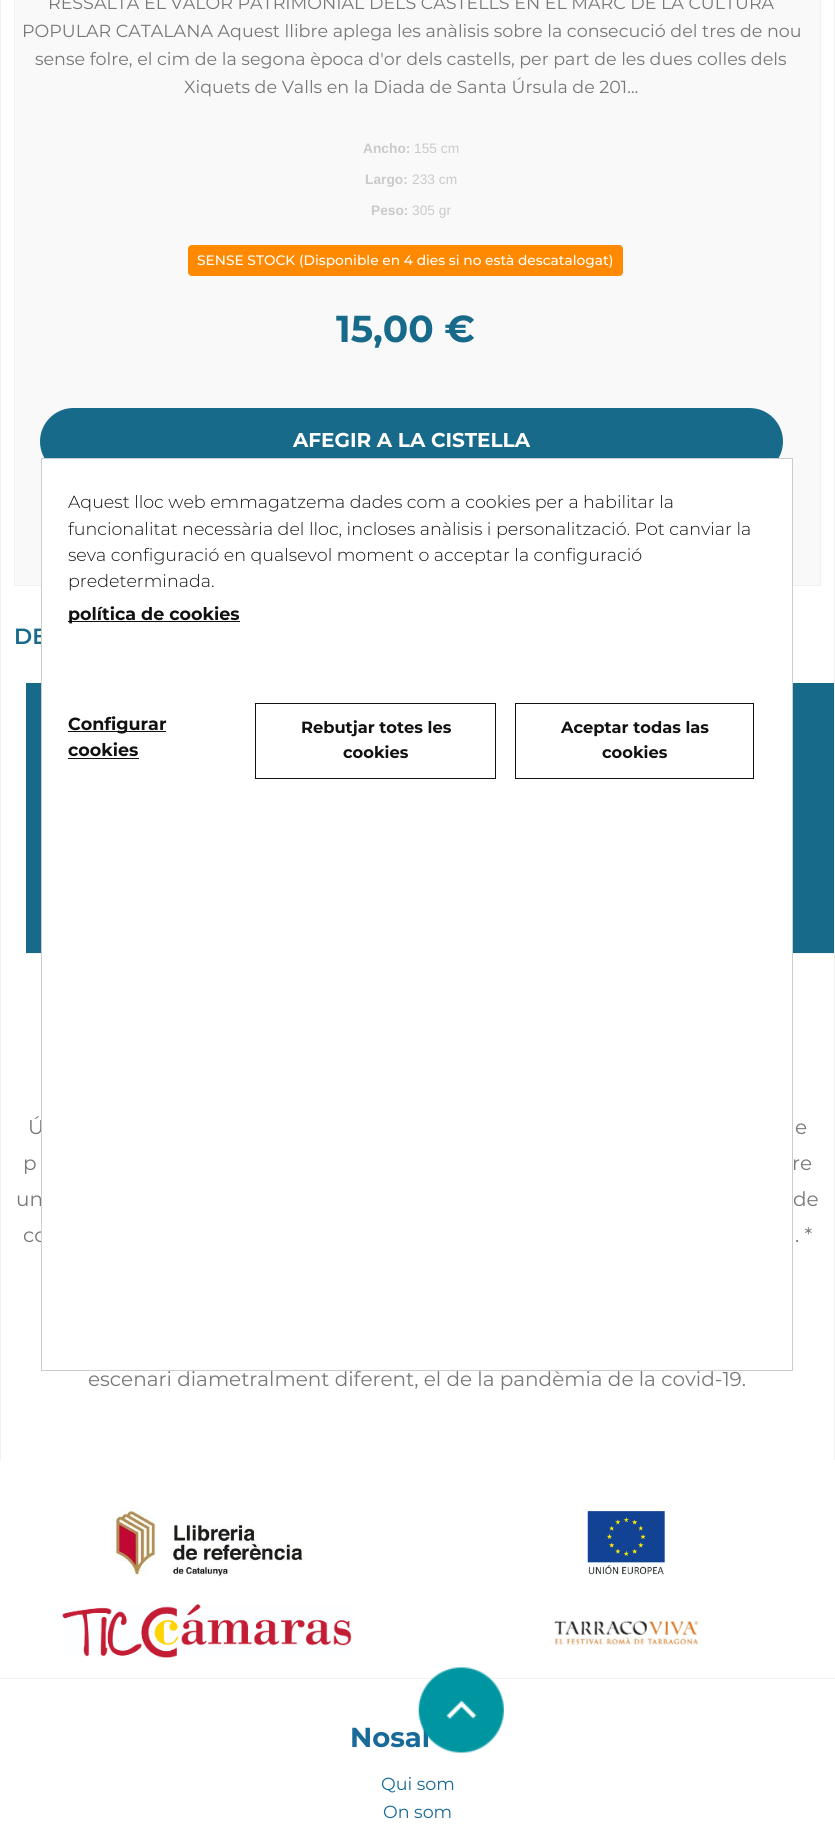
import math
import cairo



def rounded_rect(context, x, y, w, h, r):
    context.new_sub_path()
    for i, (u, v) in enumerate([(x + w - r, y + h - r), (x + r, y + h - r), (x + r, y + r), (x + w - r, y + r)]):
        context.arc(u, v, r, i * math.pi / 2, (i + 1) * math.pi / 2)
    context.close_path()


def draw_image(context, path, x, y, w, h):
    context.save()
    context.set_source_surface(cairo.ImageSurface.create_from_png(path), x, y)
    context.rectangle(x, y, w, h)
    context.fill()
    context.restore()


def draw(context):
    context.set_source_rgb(1, 1, 1)
    context.paint()
    context.set_source_rgb(241 / 255, 241 / 255, 241 / 255)
    context.rectangle(834, 0, 1, 1460)
    context.fill()
    context.rectangle(0, 0, 1, 1460)
    context.fill()
    context.set_source_rgb(249 / 255, 249 / 255, 249 / 255)
    context.rectangle(14.5, -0.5, 806, 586)
    context.fill_preserve()
    context.set_source_rgb(241 / 255, 241 / 255, 241 / 255)
    context.set_line_width(1)
    context.stroke()
    context.set_source_rgb(1, 137 / 255, 0)
    rounded_rect(context, 188, 245, 435, 31, 4)
    context.fill()
    context.set_source_rgb(24 / 255, 106 / 255, 138 / 255)
    rounded_rect(context, 40, 408, 743, 67, 33.5)
    context.fill()
    context.rectangle(26, 683, 808, 270)
    context.fill()
    context.set_source_rgb(241 / 255, 241 / 255, 241 / 255)
    context.rectangle(26, 953, 808, 1)
    context.fill()
    draw_image(context, "images/2.png", 111, 1508, 195, 70)
    draw_image(context, "images/3.png", 587, 1511, 78, 64)
    draw_image(context, "images/4.png", 62, 1604, 290, 54)
    draw_image(context, "images/5.png", 554, 1620, 145, 25)
    context.rectangle(0, 1678, 835, 1)
    context.fill()
    context.select_font_face("Montserrat")
    context.set_font_size(17.5)
    context.set_source_rgb(119 / 255, 119 / 255, 119 / 255)
    context.move_to(48, 9)
    context.show_text("RESSALTA EL VALOR PATRIMONIAL DELS CASTELLS EN EL MARC DE LA CULTURA")
    context.move_to(22, 37)
    context.show_text("POPULAR CATALANA Aquest llibre aplega les anàlisis sobre la consecució del tres de nou")
    context.move_to(35, 65)
    context.show_text("sense folre, el cim de la segona època d'or dels castells, per part de les dues colles dels")
    context.move_to(184, 93)
    context.show_text("Xiquets de Valls en la Diada de Santa Úrsula de 201...")
    context.select_font_face("Liberation Sans", cairo.FontSlant.NORMAL, cairo.FontWeight.BOLD)
    context.set_font_size(13.75)
    context.set_source_rgb(202 / 255, 202 / 255, 202 / 255)
    context.move_to(363, 153)
    context.show_text("Ancho:")
    context.select_font_face("Liberation Sans")
    context.move_to(414, 153)
    context.show_text("155 cm")
    context.select_font_face("Liberation Sans", cairo.FontSlant.NORMAL, cairo.FontWeight.BOLD)
    context.move_to(365, 184)
    context.show_text("Largo:")
    context.select_font_face("Liberation Sans")
    context.move_to(412, 184)
    context.show_text("233 cm")
    context.select_font_face("Liberation Sans", cairo.FontSlant.NORMAL, cairo.FontWeight.BOLD)
    context.move_to(371, 215)
    context.show_text("Peso:")
    context.select_font_face("Liberation Sans")
    context.move_to(412, 215)
    context.show_text("305 gr")
    context.select_font_face("Montserrat Medium")
    context.set_source_rgb(1, 1, 1)
    context.move_to(197, 265)
    context.show_text("SENSE STOCK (Disponible en 4 dies si no està descatalogat)")
    context.select_font_face("Montserrat", cairo.FontSlant.NORMAL, cairo.FontWeight.BOLD)
    context.set_font_size(37.5)
    context.set_source_rgb(24 / 255, 106 / 255, 138 / 255)
    context.move_to(336, 342)
    context.show_text("15,00 €")
    context.set_font_size(20)
    context.set_source_rgb(1, 1, 1)
    context.move_to(293, 447)
    context.show_text("AFEGIR A LA CISTELLA")
    context.select_font_face("Montserrat SemiBold")
    context.set_font_size(22)
    context.set_source_rgb(24 / 255, 106 / 255, 138 / 255)
    context.move_to(14, 644)
    context.show_text("DE")
    context.select_font_face("Montserrat")
    context.set_font_size(20)
    context.set_source_rgb(119 / 255, 119 / 255, 119 / 255)
    context.move_to(28, 1134)
    context.show_text("Ú")
    context.move_to(795, 1134)
    context.show_text("e")
    context.move_to(23, 1170)
    context.show_text("p")
    context.move_to(792, 1170)
    context.show_text("re")
    context.move_to(16, 1206)
    context.show_text("un")
    context.move_to(793, 1206)
    context.show_text("de")
    context.move_to(23, 1242)
    context.show_text("co")
    context.move_to(795, 1242)
    context.show_text(". *")
    context.move_to(88, 1386)
    context.show_text("escenari diametralment diferent, el de la pandèmia de la covid-19.")
    context.set_source_rgb(1, 1, 1)
    context.rectangle(42, 459, 750, 783)
    context.fill()
    context.rectangle(41.5, 458.5, 751, 912)
    context.set_source_rgb(204 / 255, 204 / 255, 204 / 255)
    context.stroke()
    context.select_font_face("Montserrat Light")
    context.set_font_size(17.5)
    context.set_source_rgb(17 / 255, 17 / 255, 17 / 255)
    context.move_to(68, 508)
    context.show_text("Aquest lloc web emmagatzema dades com a cookies per a habilitar la")
    context.move_to(68, 535)
    context.show_text("funcionalitat necessària del lloc, incloses anàlisis i personalització. Pot canviar la")
    context.move_to(68, 561)
    context.show_text("seva configuració en qualsevol moment o acceptar la configuració")
    context.move_to(68, 587)
    context.show_text("predeterminada.")
    context.rectangle(68, 621, 172, 1)
    context.fill()
    context.select_font_face("Montserrat", cairo.FontSlant.NORMAL, cairo.FontWeight.BOLD)
    context.move_to(68, 620)
    context.show_text("política de cookies")
    context.rectangle(68, 731, 98, 1)
    context.fill()
    context.move_to(68, 730)
    context.show_text("Configurar")
    context.move_to(68, 756)
    context.show_text("cookies")
    context.rectangle(68, 758, 71, 1)
    context.fill()
    context.rectangle(255.5, 703.5, 240, 75)
    context.stroke()
    context.set_font_size(16.25)
    context.move_to(301, 733)
    context.show_text("Rebutjar totes les")
    context.move_to(343, 758)
    context.show_text("cookies")
    context.rectangle(515.5, 703.5, 238, 75)
    context.stroke()
    context.move_to(561, 733)
    context.show_text("Aceptar todas las")
    context.move_to(602, 758)
    context.show_text("cookies")
    context.set_font_size(27.5)
    context.set_source_rgb(24 / 255, 106 / 255, 153 / 255)
    context.move_to(350, 1747)
    context.show_text("Nosal")
    draw_image(context, "images/1.png", 418, 1667, 86, 86)
    context.select_font_face("Montserrat")
    context.set_font_size(17.5)
    context.move_to(381, 1790)
    context.show_text("Qui som")
    context.move_to(383, 1818)
    context.show_text("On som")


surface = cairo.ImageSurface(cairo.Format.RGB24, 835, 1828)
context = cairo.Context(surface)
options = cairo.FontOptions()
options.set_hint_metrics(cairo.HintMetrics.OFF)
options.set_hint_style(cairo.HintStyle.NONE)
context.set_font_options(options)
context.set_miter_limit(4)
draw(context)
surface.write_to_png("out.png")
